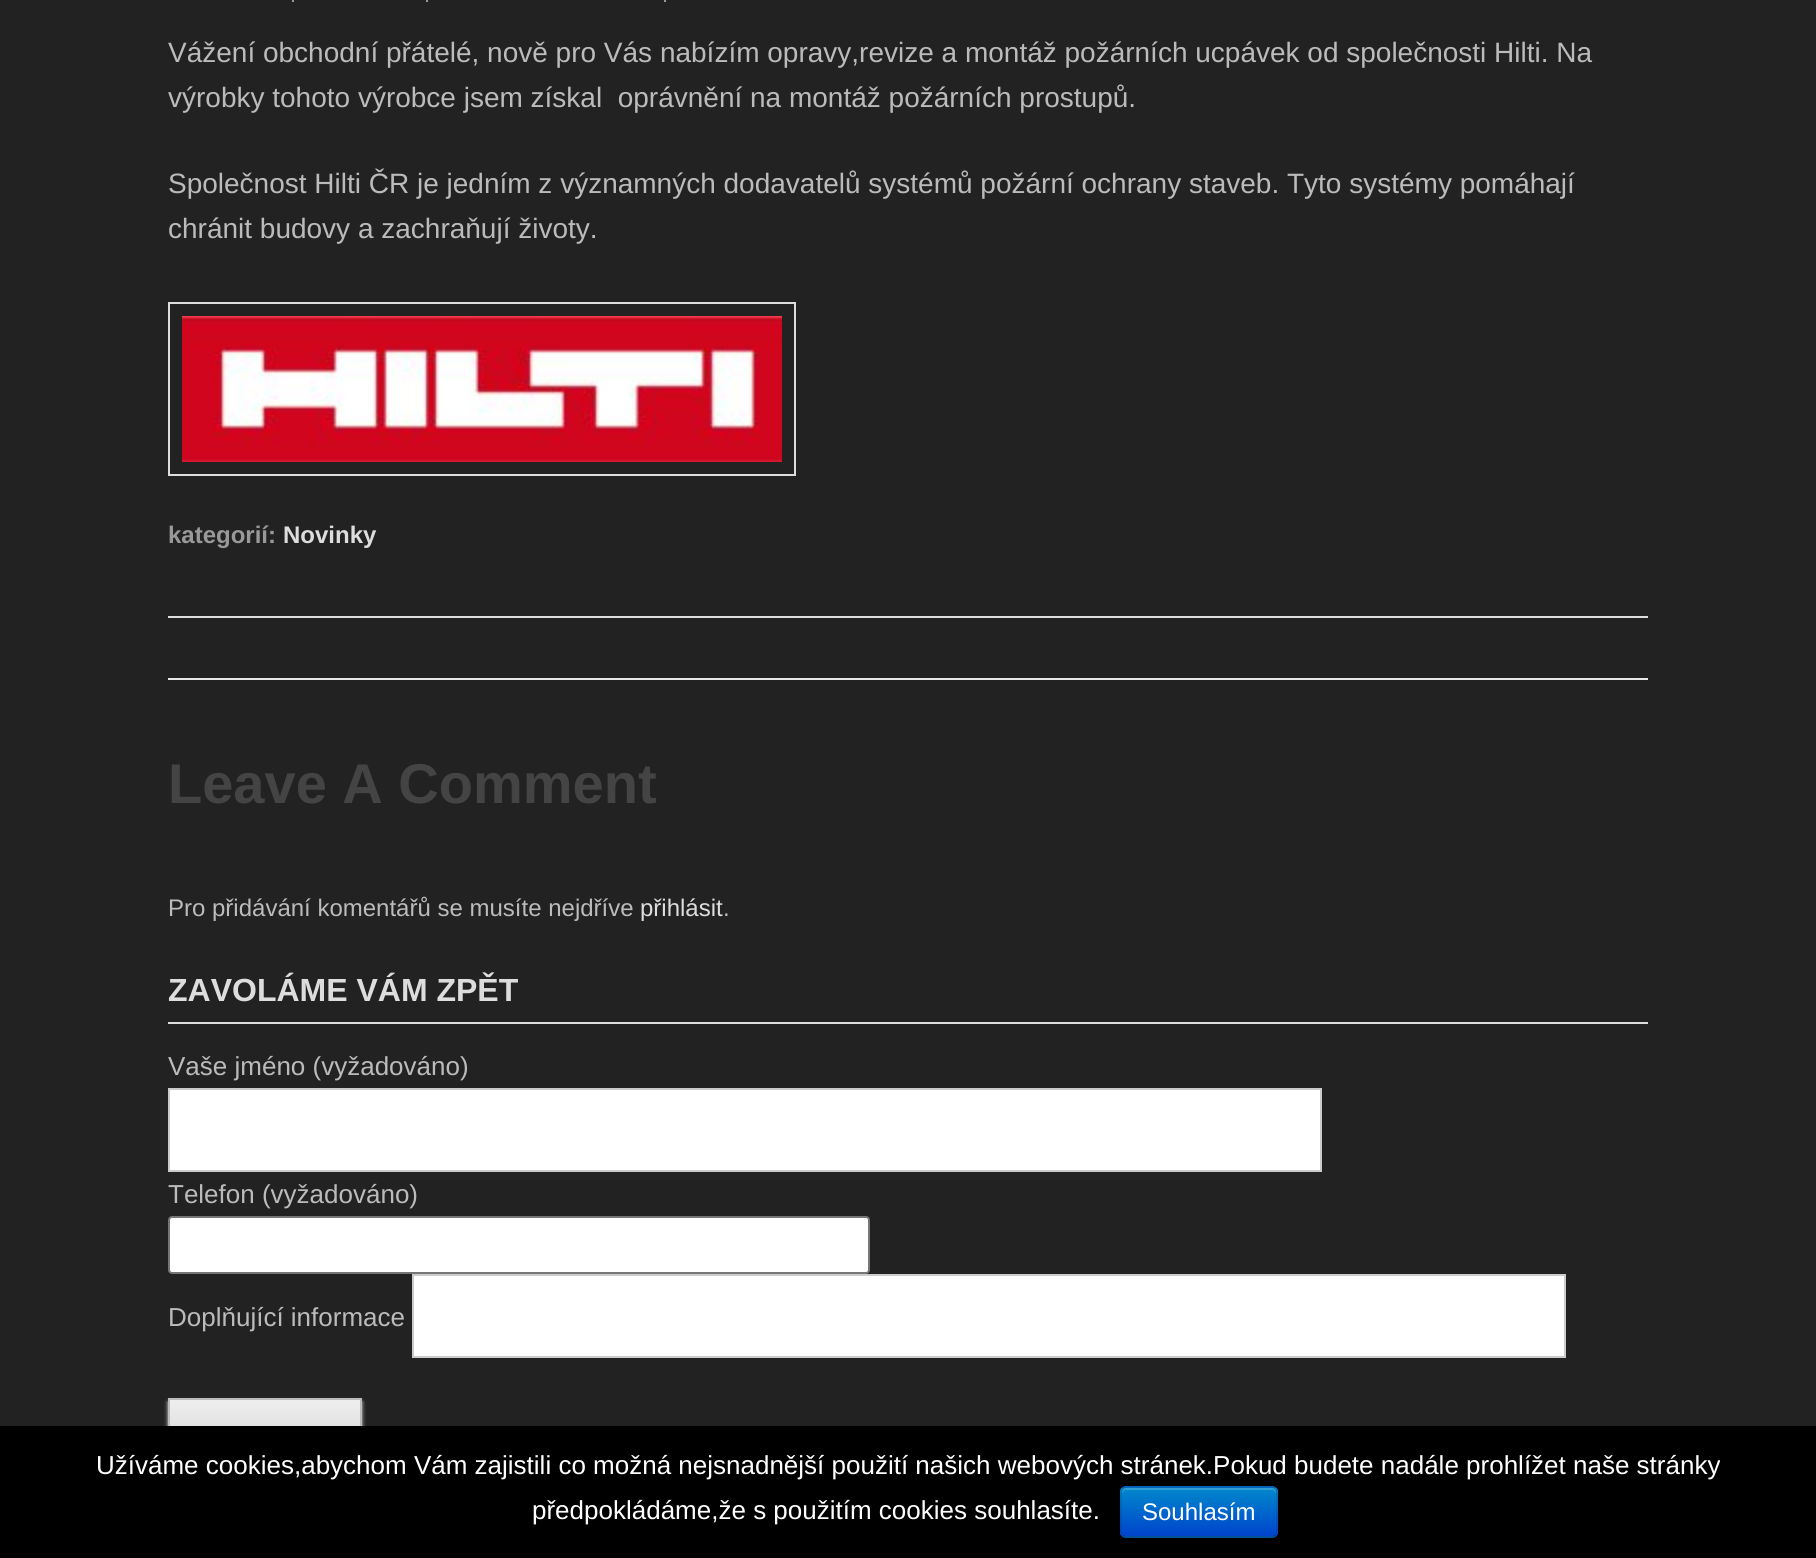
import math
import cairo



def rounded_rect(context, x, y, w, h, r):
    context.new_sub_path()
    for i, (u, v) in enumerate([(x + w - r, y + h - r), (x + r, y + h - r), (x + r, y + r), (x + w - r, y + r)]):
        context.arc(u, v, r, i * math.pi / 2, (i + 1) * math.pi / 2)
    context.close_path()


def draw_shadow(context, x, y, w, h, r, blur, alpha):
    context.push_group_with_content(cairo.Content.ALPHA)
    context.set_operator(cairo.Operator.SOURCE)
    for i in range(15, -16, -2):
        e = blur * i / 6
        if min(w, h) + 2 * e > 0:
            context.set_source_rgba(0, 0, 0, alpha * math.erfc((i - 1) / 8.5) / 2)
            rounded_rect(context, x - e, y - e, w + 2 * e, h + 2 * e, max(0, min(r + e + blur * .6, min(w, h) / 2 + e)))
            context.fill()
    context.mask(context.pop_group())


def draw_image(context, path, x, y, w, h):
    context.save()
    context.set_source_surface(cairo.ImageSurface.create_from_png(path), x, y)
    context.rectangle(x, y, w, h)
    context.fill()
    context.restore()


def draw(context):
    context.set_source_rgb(34 / 255, 34 / 255, 34 / 255)
    context.paint()
    context.set_source_rgb(221 / 255, 221 / 255, 221 / 255)
    context.rectangle(168, 616, 1480, 2)
    context.fill()
    context.set_source_rgb(153 / 255, 153 / 255, 153 / 255)
    context.rectangle(292, 0, 2, 2)
    context.fill()
    context.rectangle(426, 0, 2, 2)
    context.fill()
    context.rectangle(664, 0, 2, 2)
    context.fill()
    context.rectangle(169, 303, 626, 172)
    context.set_source_rgb(221 / 255, 221 / 255, 221 / 255)
    context.stroke()
    draw_image(context, "images/1.png", 182, 316, 600, 146)
    context.set_source_rgb(231 / 255, 231 / 255, 231 / 255)
    context.rectangle(168, 678, 1480, 2)
    context.fill()
    context.set_source_rgb(221 / 255, 221 / 255, 221 / 255)
    context.rectangle(168, 1022, 1480, 2)
    context.fill()
    context.set_source_rgb(1, 1, 1)
    context.rectangle(169, 1089, 1152, 82)
    context.fill_preserve()
    context.set_source_rgb(204 / 255, 204 / 255, 204 / 255)
    context.stroke()
    context.set_source_rgb(1, 1, 1)
    rounded_rect(context, 169, 1217, 700, 56, 3)
    context.fill_preserve()
    context.set_source_rgb(118 / 255, 118 / 255, 118 / 255)
    context.stroke()
    context.set_source_rgb(1, 1, 1)
    context.rectangle(413, 1275, 1152, 82)
    context.fill_preserve()
    context.set_source_rgb(204 / 255, 204 / 255, 204 / 255)
    context.stroke()
    context.set_source_rgb(224 / 255, 224 / 255, 224 / 255)
    draw_shadow(context, 168, 1402, 194, 66, 0, 2, 1)
    draw_image(context, "images/2.png", 170, 1400, 190, 26)
    context.rectangle(169, 1399, 192, 64)
    context.set_source_rgb(187 / 255, 187 / 255, 187 / 255)
    context.stroke()
    context.set_source_rgb(0, 0, 0)
    context.rectangle(0, 1426, 1816, 132)
    context.fill()
    context.set_source_rgb(0, 109 / 255, 204 / 255)
    rounded_rect(context, 1120, 1486, 158, 52, 6)
    context.fill()
    context.save()
    rounded_rect(context, 1120, 1486, 158, 52, 6)
    context.clip()
    gradient = cairo.LinearGradient(1199, 1488, 1199, 1536)
    gradient.add_color_stop_rgba(0, 0, 136 / 255, 204 / 255, 1)
    gradient.add_color_stop_rgba(1, 0, 68 / 255, 204 / 255, 1)
    context.set_source(gradient)
    context.rectangle(1120, 1488, 158, 48)
    context.fill()
    context.restore()
    context.set_source_rgba(1, 1, 1, 0.2)
    context.new_path()
    context.move_to(1126, 1490)
    context.line_to(1272, 1490)
    context.curve_to(1274, 1490, 1276, 1492, 1276, 1494)
    context.line_to(1276, 1492)
    context.curve_to(1276, 1490, 1274, 1488, 1272, 1488)
    context.line_to(1126, 1488)
    context.curve_to(1124, 1488, 1122, 1490, 1122, 1492)
    context.line_to(1122, 1494)
    context.curve_to(1122, 1492, 1124, 1490, 1126, 1490)
    context.close_path()
    context.fill()
    context.new_path()
    context.move_to(1275.5, 1535.5)
    context.curve_to(1274.5, 1536.5, 1273.5, 1537, 1272, 1537)
    context.line_to(1126, 1537)
    context.curve_to(1124.5, 1537, 1123.5, 1536.5, 1122.5, 1535.5)
    context.set_source_rgba(0, 0, 0, 0.25)
    context.stroke()
    context.new_path()
    context.move_to(1122.5, 1535.5)
    context.curve_to(1120, 1533, 1121, 1528, 1121, 1525.5)
    context.line_to(1121, 1512)
    context.curve_to(1121, 1481, 1116.5, 1487, 1150.5, 1487)
    context.line_to(1272, 1487)
    context.curve_to(1278, 1487, 1277, 1495, 1277, 1498.5)
    context.line_to(1277, 1525.5)
    context.curve_to(1277, 1528, 1278, 1533, 1275.5, 1535.5)
    context.set_source_rgba(0, 0, 0, 0.1)
    context.stroke()
    context.select_font_face("Liberation Sans")
    context.set_font_size(28)
    context.set_source_rgb(187 / 255, 187 / 255, 187 / 255)
    context.move_to(168, 62)
    context.show_text("Vážení obchodní přátelé, nově pro Vás nabízím opravy,revize a montáž požárních ucpávek od společnosti Hilti. Na")
    context.move_to(168, 107)
    context.show_text("výrobky tohoto výrobce jsem získal  oprávnění na montáž požárních prostupů.")
    context.move_to(168, 193)
    context.show_text("Společnost Hilti ČR je jedním z významných dodavatelů systémů požární ochrany staveb. Tyto systémy pomáhají")
    context.move_to(168, 238)
    context.show_text("chránit budovy a zachraňují životy.")
    context.select_font_face("Liberation Sans", cairo.FontSlant.NORMAL, cairo.FontWeight.BOLD)
    context.set_font_size(24)
    context.set_source_rgb(153 / 255, 153 / 255, 153 / 255)
    context.move_to(168, 543)
    context.show_text("kategorií:")
    context.set_source_rgb(221 / 255, 221 / 255, 221 / 255)
    context.move_to(283, 543)
    context.show_text("Novinky")
    context.set_font_size(56)
    context.set_source_rgb(68 / 255, 68 / 255, 68 / 255)
    context.move_to(168, 803)
    context.show_text("Leave A Comment")
    context.select_font_face("Liberation Sans")
    context.set_font_size(24)
    context.set_source_rgb(187 / 255, 187 / 255, 187 / 255)
    context.move_to(168, 916)
    context.show_text("Pro přidávání komentářů se musíte nejdříve")
    context.set_source_rgb(221 / 255, 221 / 255, 221 / 255)
    context.move_to(640, 916)
    context.show_text("přihlásit")
    context.set_source_rgb(187 / 255, 187 / 255, 187 / 255)
    context.move_to(723, 916)
    context.show_text(".")
    context.select_font_face("Liberation Sans", cairo.FontSlant.NORMAL, cairo.FontWeight.BOLD)
    context.set_font_size(32)
    context.set_source_rgb(221 / 255, 221 / 255, 221 / 255)
    context.move_to(168, 1001)
    context.show_text("ZAVOLÁME VÁM ZPĚT")
    context.select_font_face("Liberation Sans")
    context.set_font_size(26)
    context.set_source_rgb(187 / 255, 187 / 255, 187 / 255)
    context.move_to(168, 1075)
    context.show_text("Vaše jméno (vyžadováno)")
    context.move_to(168, 1203)
    context.show_text("Telefon (vyžadováno)")
    context.move_to(168, 1326)
    context.show_text("Doplňující informace")
    context.set_source_rgb(1, 1, 1)
    context.move_to(96, 1474)
    context.show_text("Užíváme cookies,abychom Vám zajistili co možná nejsnadnější použití našich webových stránek.Pokud budete nadále prohlížet naše stránky")
    context.move_to(532, 1519)
    context.show_text("předpokládáme,že s použitím cookies souhlasíte.")
    context.set_font_size(24)
    context.move_to(1142, 1520)
    context.show_text("Souhlasím")


surface = cairo.ImageSurface(cairo.Format.RGB24, 1816, 1558)
context = cairo.Context(surface)
options = cairo.FontOptions()
options.set_hint_metrics(cairo.HintMetrics.OFF)
options.set_hint_style(cairo.HintStyle.NONE)
context.set_font_options(options)
context.set_miter_limit(4)
draw(context)
surface.write_to_png("out.png")
